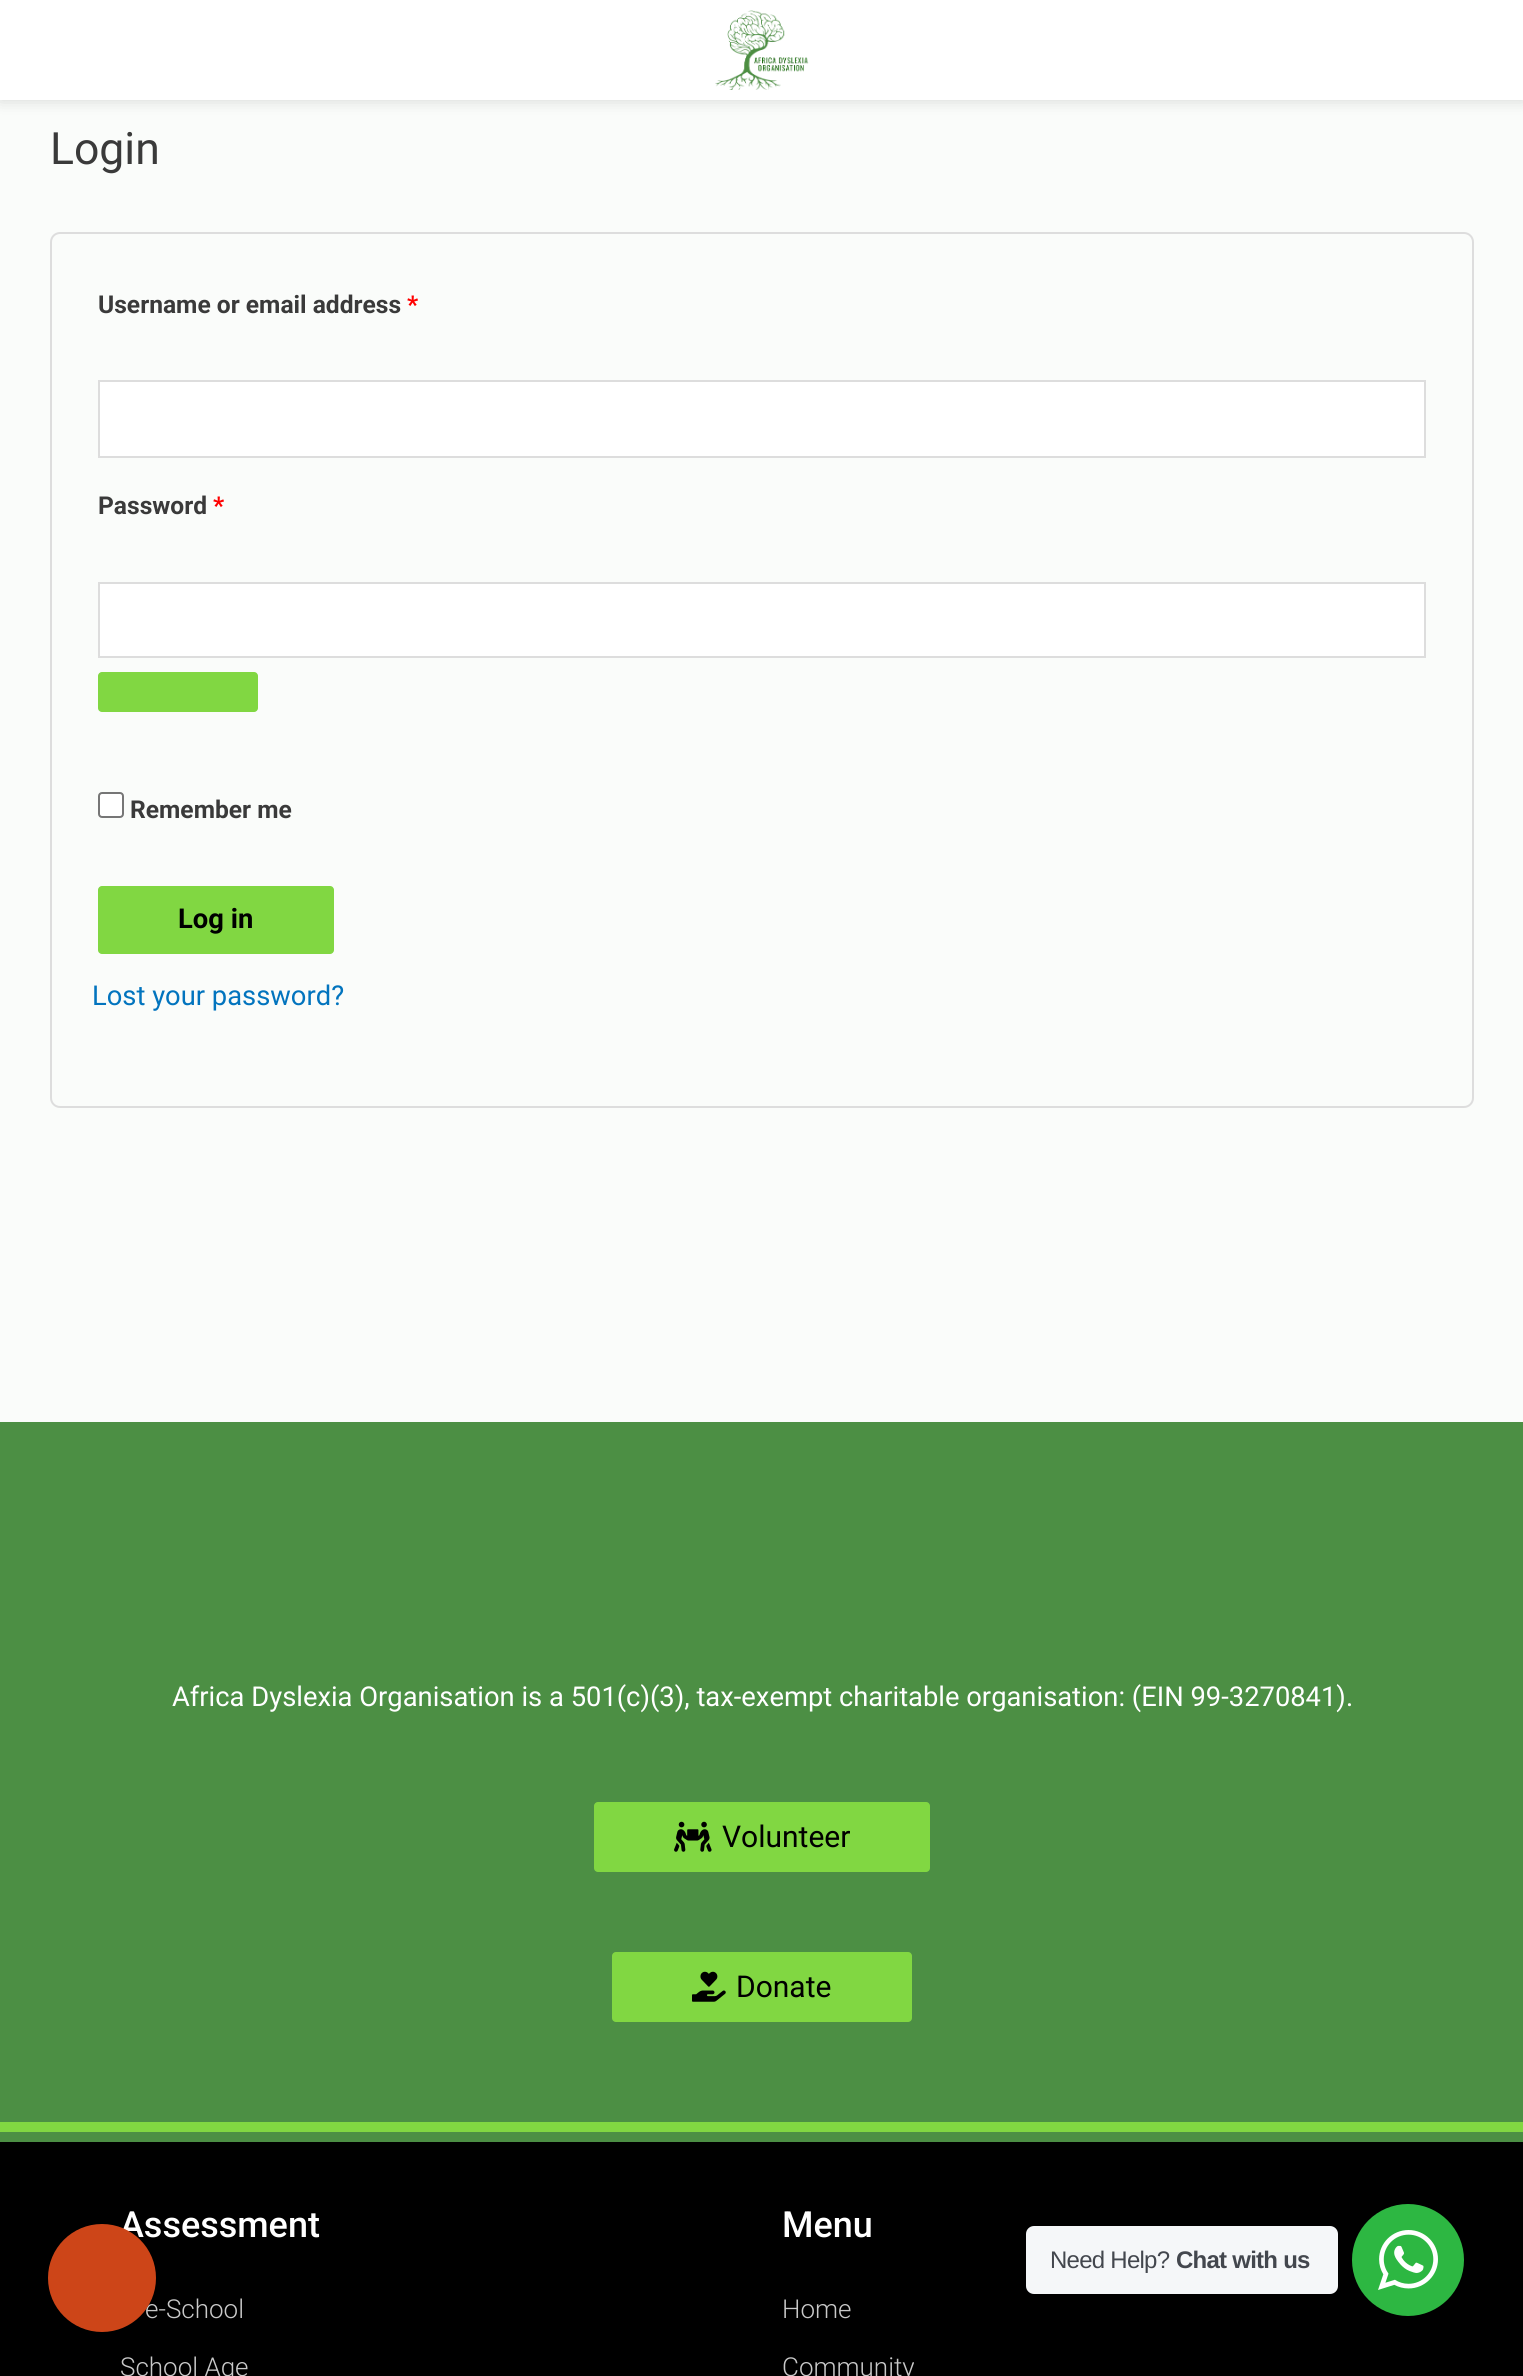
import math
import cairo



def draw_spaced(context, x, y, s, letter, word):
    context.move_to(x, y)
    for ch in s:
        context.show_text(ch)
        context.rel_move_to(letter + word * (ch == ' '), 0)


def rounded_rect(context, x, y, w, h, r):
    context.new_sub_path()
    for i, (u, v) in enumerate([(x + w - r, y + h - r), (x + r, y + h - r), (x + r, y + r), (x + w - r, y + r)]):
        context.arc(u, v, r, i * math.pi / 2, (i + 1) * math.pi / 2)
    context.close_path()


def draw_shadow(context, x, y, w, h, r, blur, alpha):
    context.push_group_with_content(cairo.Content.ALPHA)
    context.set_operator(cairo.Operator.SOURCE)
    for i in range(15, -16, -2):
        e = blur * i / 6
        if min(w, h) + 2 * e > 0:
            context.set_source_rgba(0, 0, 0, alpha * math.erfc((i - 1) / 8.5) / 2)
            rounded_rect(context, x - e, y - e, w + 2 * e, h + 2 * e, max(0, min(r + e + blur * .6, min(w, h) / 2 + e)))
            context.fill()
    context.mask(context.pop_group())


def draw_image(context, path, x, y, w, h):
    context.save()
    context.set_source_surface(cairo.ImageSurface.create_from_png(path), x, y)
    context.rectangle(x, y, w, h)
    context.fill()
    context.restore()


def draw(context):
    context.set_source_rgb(250 / 255, 252 / 255, 250 / 255)
    context.paint()
    context.set_source_rgb(0, 0, 0)
    draw_shadow(context, 0, 0, 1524, 100, 0, 8, 0.15)
    context.set_source_rgb(1, 1, 1)
    context.rectangle(0, 0, 1523, 100)
    context.fill()
    draw_image(context, "images/1.png", 715, 10, 94, 80)
    rounded_rect(context, 51, 233, 1422, 874, 9)
    context.set_source_rgb(221 / 255, 221 / 255, 221 / 255)
    context.stroke()
    context.set_source_rgb(1, 1, 1)
    context.rectangle(99, 381, 1326, 76)
    context.fill_preserve()
    context.set_source_rgb(221 / 255, 221 / 255, 221 / 255)
    context.stroke()
    context.set_source_rgb(1, 1, 1)
    context.rectangle(99, 583, 1326, 74)
    context.fill_preserve()
    context.set_source_rgb(221 / 255, 221 / 255, 221 / 255)
    context.stroke()
    context.set_source_rgb(129 / 255, 215 / 255, 66 / 255)
    rounded_rect(context, 98, 672, 160, 40, 4)
    context.fill()
    context.set_source_rgb(1, 1, 1)
    rounded_rect(context, 99, 793, 24, 24, 3)
    context.fill_preserve()
    context.set_source_rgb(118 / 255, 118 / 255, 118 / 255)
    context.stroke()
    context.set_source_rgb(129 / 255, 215 / 255, 66 / 255)
    rounded_rect(context, 98, 886, 236, 68, 4)
    context.fill()
    context.set_source_rgb(76 / 255, 143 / 255, 68 / 255)
    context.rectangle(0, 1422, 1523, 700)
    context.fill()
    context.set_source_rgb(129 / 255, 215 / 255, 66 / 255)
    context.rectangle(0, 2122, 1523, 10)
    context.fill()
    rounded_rect(context, 594, 1802, 336, 70, 4)
    context.fill()
    draw_image(context, "images/2.png", 674, 1821, 38, 31)
    rounded_rect(context, 612, 1952, 300, 70, 4)
    context.fill()
    draw_image(context, "images/3.png", 692, 1971, 34, 31)
    context.set_source_rgb(0, 0, 0)
    context.rectangle(0, 2142, 1523, 234)
    context.fill()
    context.set_source_rgb(76 / 255, 143 / 255, 68 / 255)
    context.rectangle(0, 2132, 1523, 10)
    context.fill()
    context.set_source_rgb(245 / 255, 247 / 255, 249 / 255)
    rounded_rect(context, 1026, 2226, 312, 68, 8)
    context.fill()
    context.set_source_rgb(45 / 255, 183 / 255, 66 / 255)
    context.arc(1408, 2260, 56, 0, 2 * math.pi)
    context.fill()
    draw_image(context, "images/4.png", 1378, 2230, 60, 60)
    context.select_font_face("Roboto")
    context.set_font_size(44.5)
    context.set_source_rgb(58 / 255, 58 / 255, 58 / 255)
    context.move_to(50, 164)
    context.show_text("Login")
    context.select_font_face("Roboto", cairo.FontSlant.NORMAL, cairo.FontWeight.BOLD)
    context.set_font_size(24.6)
    context.move_to(98, 313)
    context.show_text("Username or email address")
    context.set_source_rgb(1, 0, 0)
    context.move_to(407, 313)
    context.show_text("*")
    context.set_source_rgb(58 / 255, 58 / 255, 58 / 255)
    context.move_to(98, 514)
    context.show_text("Password")
    context.set_source_rgb(1, 0, 0)
    context.move_to(213, 514)
    context.show_text("*")
    context.set_source_rgb(58 / 255, 58 / 255, 58 / 255)
    context.move_to(130, 818)
    context.show_text("Remember me")
    context.set_font_size(27.35)
    context.set_source_rgb(0, 0, 0)
    context.move_to(178, 928)
    context.show_text("Log in")
    context.select_font_face("Roboto")
    context.set_source_rgb(2 / 255, 116 / 255, 190 / 255)
    context.move_to(92, 1005)
    context.show_text("Lost your password?")
    context.set_source_rgb(1, 1, 1)
    context.move_to(172, 1706)
    context.show_text("Africa Dyslexia Organisation is a 501(c)(3), tax-exempt charitable organisation: (EIN 99-3270841).")
    context.set_font_size(30)
    context.set_source_rgb(0, 0, 0)
    context.move_to(722, 1847)
    context.show_text("Volunteer")
    context.move_to(736, 1997)
    context.show_text("Donate")
    context.select_font_face("Roboto Medium")
    context.set_font_size(36)
    context.set_source_rgb(1, 1, 1)
    context.move_to(120, 2237)
    context.show_text("Assessment")
    context.select_font_face("Roboto Light")
    context.set_font_size(26)
    context.set_source_rgb(201 / 255, 201 / 255, 201 / 255)
    context.move_to(145, 2318)
    context.show_text("e-School")
    context.move_to(120, 2376)
    context.show_text("School Age")
    context.select_font_face("Roboto Medium")
    context.set_font_size(36)
    context.set_source_rgb(1, 1, 1)
    context.move_to(782, 2237)
    context.show_text("Menu")
    context.select_font_face("Roboto Light")
    context.set_font_size(26)
    context.set_source_rgb(201 / 255, 201 / 255, 201 / 255)
    context.move_to(782, 2318)
    context.show_text("Home")
    context.move_to(782, 2376)
    context.show_text("Community")
    context.set_source_rgb(205 / 255, 69 / 255, 24 / 255)
    context.new_path()
    context.arc(102, 2278, 54, 0, 2 * math.pi)
    context.fill()
    context.select_font_face("Liberation Sans")
    context.set_font_size(24)
    context.set_source_rgb(67 / 255, 71 / 255, 78 / 255)
    draw_spaced(context, 1050, 2268, "Need Help?", -0.75, 0)
    context.select_font_face("Liberation Sans", cairo.FontSlant.NORMAL, cairo.FontWeight.BOLD)
    draw_spaced(context, 1176, 2268, "Chat with us", -0.75, 0)


surface = cairo.ImageSurface(cairo.Format.RGB24, 1523, 2376)
context = cairo.Context(surface)
options = cairo.FontOptions()
options.set_hint_metrics(cairo.HintMetrics.OFF)
options.set_hint_style(cairo.HintStyle.NONE)
context.set_font_options(options)
context.set_miter_limit(4)
draw(context)
surface.write_to_png("out.png")
